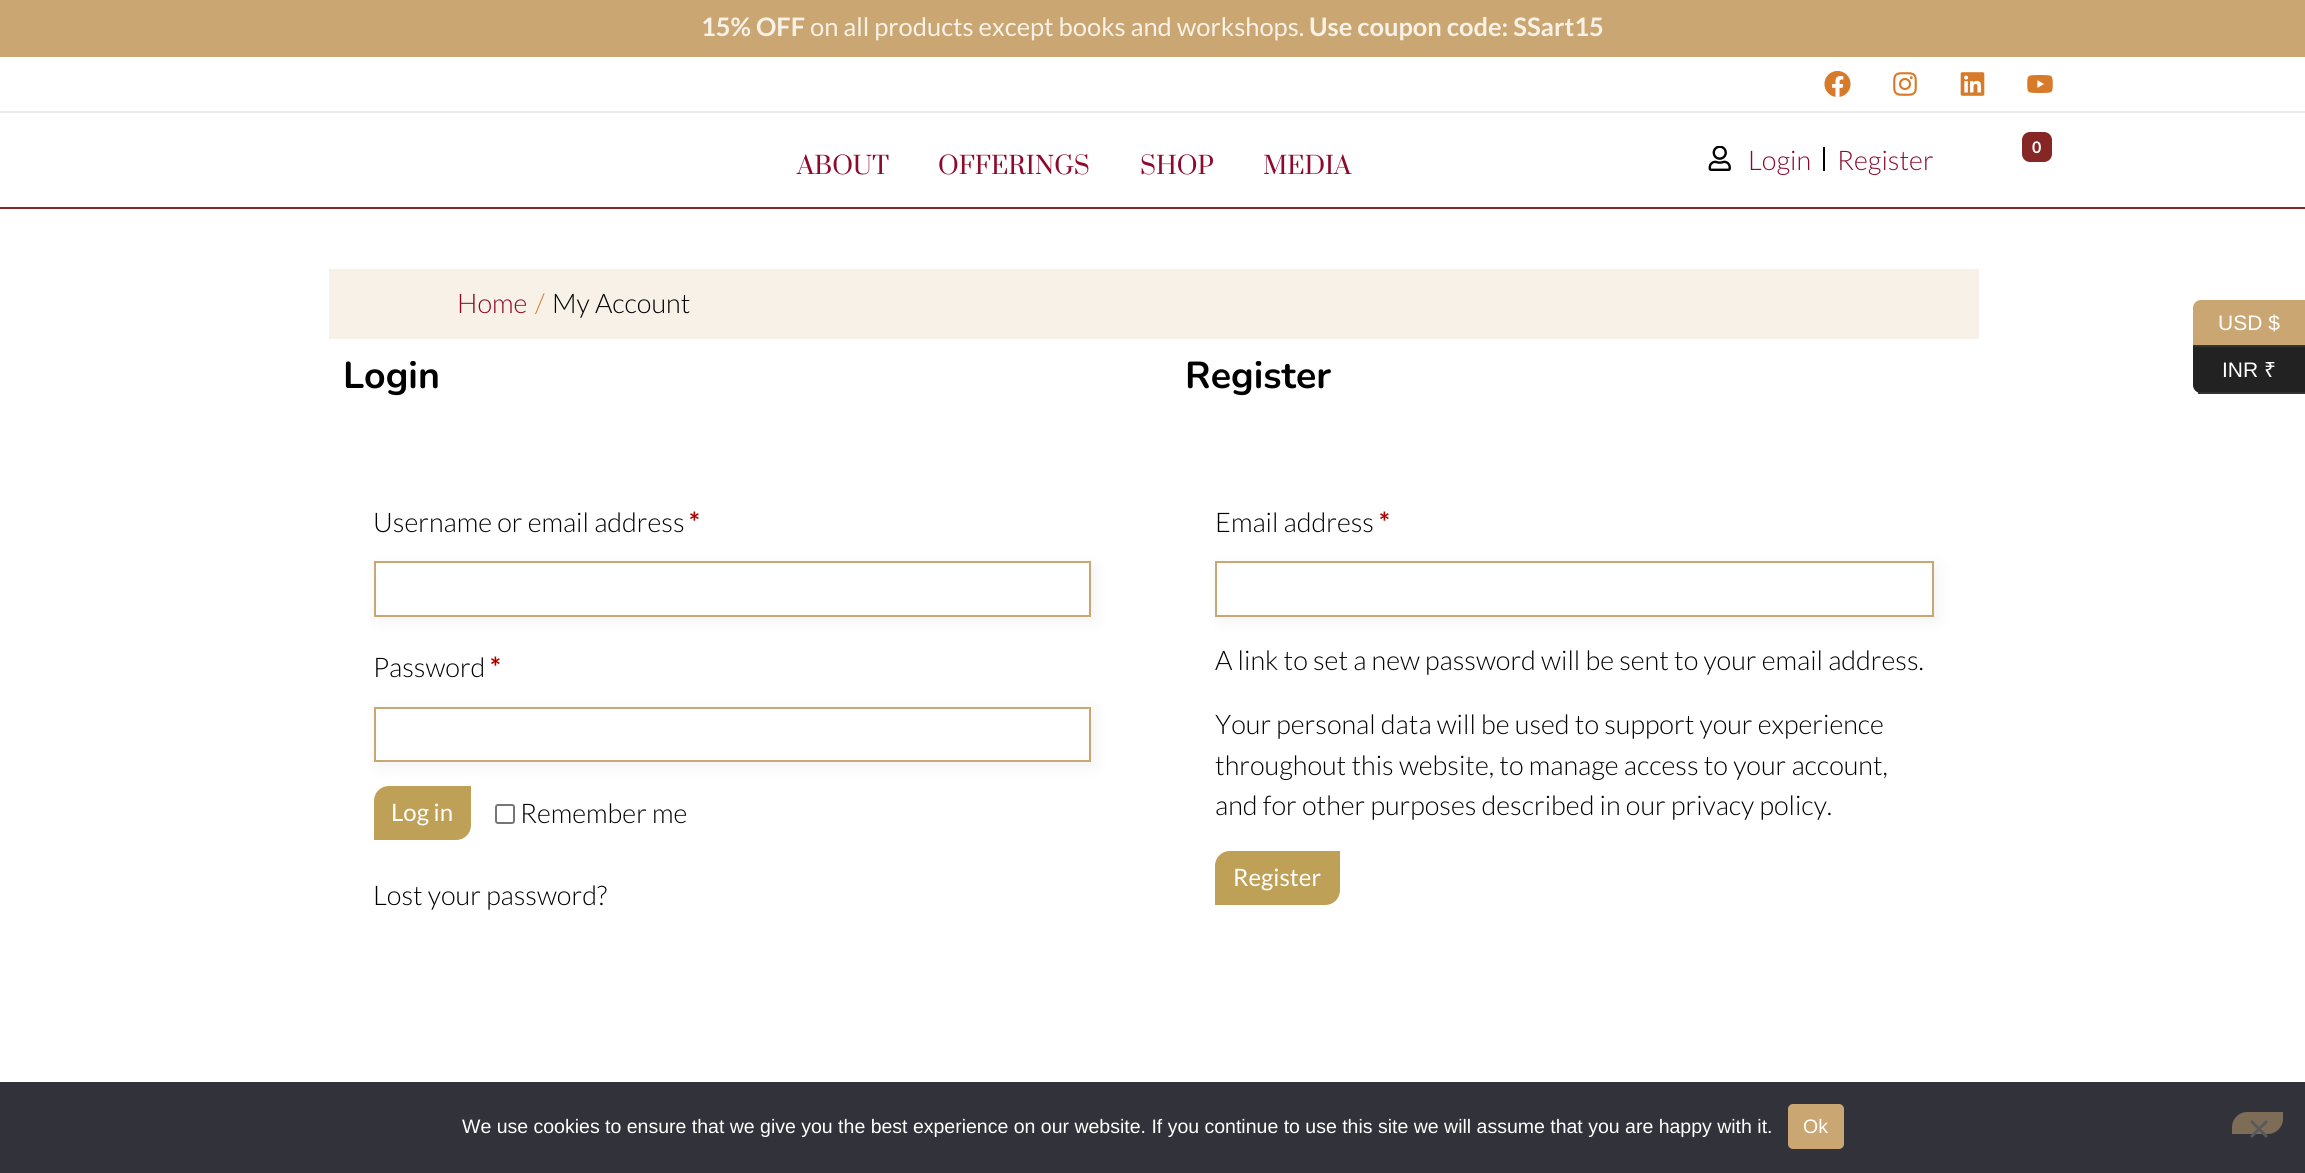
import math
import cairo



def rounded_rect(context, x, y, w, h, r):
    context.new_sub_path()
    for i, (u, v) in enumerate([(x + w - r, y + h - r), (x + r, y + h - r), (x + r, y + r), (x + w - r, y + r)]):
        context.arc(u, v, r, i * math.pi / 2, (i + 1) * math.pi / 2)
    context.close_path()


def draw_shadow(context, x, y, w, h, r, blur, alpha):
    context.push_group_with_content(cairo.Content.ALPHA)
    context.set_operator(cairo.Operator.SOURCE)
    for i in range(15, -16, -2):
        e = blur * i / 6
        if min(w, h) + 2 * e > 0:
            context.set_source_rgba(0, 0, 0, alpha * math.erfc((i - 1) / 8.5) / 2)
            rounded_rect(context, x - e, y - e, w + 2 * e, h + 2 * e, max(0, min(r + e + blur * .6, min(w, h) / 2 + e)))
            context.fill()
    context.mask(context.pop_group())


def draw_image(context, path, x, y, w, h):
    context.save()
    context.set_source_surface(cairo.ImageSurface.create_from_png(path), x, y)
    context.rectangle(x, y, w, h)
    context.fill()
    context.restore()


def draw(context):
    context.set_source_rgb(1, 1, 1)
    context.paint()
    context.set_source_rgb(202 / 255, 167 / 255, 114 / 255)
    context.rectangle(0, 0, 2305, 57)
    context.fill()
    context.set_source_rgb(235 / 255, 235 / 255, 235 / 255)
    context.rectangle(0, 111, 2305, 2)
    context.fill()
    draw_image(context, "images/1.png", 1824, 71, 27, 26)
    draw_image(context, "images/2.png", 1893, 72, 24, 24)
    draw_image(context, "images/3.png", 1960, 72, 25, 24)
    draw_image(context, "images/4.png", 2027, 75, 26, 18)
    context.set_source_rgb(134 / 255, 38 / 255, 37 / 255)
    context.rectangle(0, 207, 2305, 2)
    context.fill()
    draw_image(context, "images/5.png", 1708, 146, 23, 25)
    context.set_source_rgb(0, 0, 0)
    context.rectangle(1823, 147, 2, 24)
    context.fill()
    context.set_source_rgb(134 / 255, 38 / 255, 37 / 255)
    rounded_rect(context, 2022, 132, 30, 30, 8)
    context.fill()
    context.set_source_rgb(247 / 255, 241 / 255, 231 / 255)
    context.rectangle(329, 269, 1650, 70)
    context.fill()
    context.set_source_rgb(0, 0, 0)
    draw_shadow(context, 378, 566, 717, 55, 0, 7.5, 0.05)
    context.set_source_rgb(1, 1, 1)
    context.rectangle(375, 562, 715, 54)
    context.fill_preserve()
    context.set_source_rgb(202 / 255, 167 / 255, 114 / 255)
    context.stroke()
    context.set_source_rgb(0, 0, 0)
    draw_shadow(context, 378, 711, 717, 56, 0, 7.5, 0.05)
    context.set_source_rgb(1, 1, 1)
    context.rectangle(375, 708, 715, 53)
    context.fill_preserve()
    context.set_source_rgb(202 / 255, 167 / 255, 114 / 255)
    context.stroke()
    context.set_source_rgb(190 / 255, 160 / 255, 87 / 255)
    context.new_path()
    context.move_to(389, 786)
    context.line_to(471, 786)
    context.line_to(471, 825)
    context.curve_to(471, 833.5, 464.5, 840, 456, 840)
    context.line_to(374, 840)
    context.line_to(374, 801)
    context.curve_to(374, 792.5, 380.5, 786, 389, 786)
    context.close_path()
    context.fill()
    rounded_rect(context, 496, 805, 18, 18, 2)
    context.set_source_rgb(118 / 255, 118 / 255, 118 / 255)
    context.stroke()
    context.set_source_rgb(0, 0, 0)
    draw_shadow(context, 1220, 566, 718, 55, 0, 7.5, 0.05)
    context.set_source_rgb(1, 1, 1)
    context.rectangle(1216, 562, 717, 54)
    context.fill_preserve()
    context.set_source_rgb(202 / 255, 167 / 255, 114 / 255)
    context.stroke()
    context.set_source_rgb(190 / 255, 160 / 255, 87 / 255)
    context.new_path()
    context.move_to(1230, 851)
    context.line_to(1340, 851)
    context.line_to(1340, 890)
    context.curve_to(1340, 898.5, 1333.5, 905, 1325, 905)
    context.line_to(1215, 905)
    context.line_to(1215, 866)
    context.curve_to(1215, 857.5, 1221.5, 851, 1230, 851)
    context.close_path()
    context.fill()
    context.set_source_rgb(201 / 255, 166 / 255, 114 / 255)
    context.new_path()
    context.move_to(2201, 300)
    context.line_to(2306, 300)
    context.line_to(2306, 347)
    context.line_to(2193, 347)
    context.line_to(2193, 308)
    context.curve_to(2193, 303.5, 2196.5, 300, 2201, 300)
    context.close_path()
    context.fill()
    context.set_source_rgb(51 / 255, 51 / 255, 51 / 255)
    context.rectangle(2193, 345, 112, 2)
    context.fill()
    context.set_source_rgb(34 / 255, 34 / 255, 34 / 255)
    context.new_path()
    context.move_to(2193, 347)
    context.line_to(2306, 347)
    context.line_to(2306, 393)
    context.line_to(2201, 393)
    context.curve_to(2196.5, 393, 2193, 389.5, 2193, 385)
    context.close_path()
    context.fill()
    context.set_source_rgb(51 / 255, 51 / 255, 51 / 255)
    context.rectangle(2198, 392, 107, 2)
    context.fill()
    context.set_source_rgb(50 / 255, 50 / 255, 58 / 255)
    context.rectangle(0, 1082, 2305, 91)
    context.fill()
    context.set_source_rgb(202 / 255, 167 / 255, 114 / 255)
    rounded_rect(context, 1788, 1104, 56, 45, 5)
    context.fill()
    context.set_source_rgb(126 / 255, 109 / 255, 86 / 255)
    context.new_path()
    context.move_to(2247, 1113)
    context.line_to(2282, 1113)
    context.line_to(2282, 1119)
    context.curve_to(2282, 1126.5, 2275.5, 1133, 2268, 1133)
    context.line_to(2233, 1133)
    context.line_to(2233, 1127)
    context.curve_to(2233, 1119.5, 2239.5, 1113, 2247, 1113)
    context.close_path()
    context.fill_preserve()
    context.stroke()
    context.set_source_rgb(89 / 255, 89 / 255, 93 / 255)
    context.new_path()
    context.move_to(2266, 1120)
    context.line_to(2268, 1122)
    context.line_to(2252, 1138)
    context.line_to(2250, 1136)
    context.close_path()
    context.fill()
    context.new_path()
    context.move_to(2250, 1122)
    context.line_to(2252, 1120)
    context.line_to(2268, 1136)
    context.line_to(2266, 1138)
    context.close_path()
    context.fill()
    context.select_font_face("Lato", cairo.FontSlant.NORMAL, cairo.FontWeight.BOLD)
    context.set_font_size(25.5)
    context.set_source_rgb(247 / 255, 241 / 255, 231 / 255)
    context.move_to(701, 36)
    context.show_text("15% OFF")
    context.select_font_face("Lato")
    context.move_to(810, 36)
    context.show_text("on all products except books and workshops.")
    context.select_font_face("Lato", cairo.FontSlant.NORMAL, cairo.FontWeight.BOLD)
    context.move_to(1309, 36)
    context.show_text("Use coupon code: SSart15")
    context.select_font_face("Prata")
    context.set_font_size(24)
    context.set_source_rgb(141 / 255, 10 / 255, 44 / 255)
    context.move_to(797, 174)
    context.show_text("ABOUT")
    context.move_to(938, 174)
    context.show_text("OFFERINGS")
    context.move_to(1140, 174)
    context.show_text("SHOP")
    context.move_to(1263, 174)
    context.show_text("MEDIA")
    context.select_font_face("Lato Light")
    context.set_font_size(27)
    context.move_to(1748, 170)
    context.show_text("Login")
    context.move_to(1837, 170)
    context.show_text("Register")
    context.select_font_face("Lato", cairo.FontSlant.NORMAL, cairo.FontWeight.BOLD)
    context.set_font_size(16)
    context.set_source_rgb(1, 1, 1)
    context.move_to(2032, 153)
    context.show_text("0")
    context.select_font_face("Lato Light")
    context.set_font_size(27)
    context.set_source_rgb(141 / 255, 10 / 255, 44 / 255)
    context.move_to(457, 313)
    context.show_text("Home")
    context.set_source_rgb(215 / 255, 122 / 255, 42 / 255)
    context.move_to(535, 313)
    context.show_text("/")
    context.set_source_rgb(0, 0, 0)
    context.move_to(552, 313)
    context.show_text("My Account")
    context.select_font_face("Nunito", cairo.FontSlant.NORMAL, cairo.FontWeight.BOLD)
    context.set_font_size(37.5)
    context.move_to(343, 388)
    context.show_text("Login")
    context.select_font_face("Lato Light")
    context.set_font_size(27)
    context.move_to(373, 532)
    context.show_text("Username or email address")
    context.select_font_face("Lato", cairo.FontSlant.NORMAL, cairo.FontWeight.BOLD)
    context.set_source_rgb(170 / 255, 0, 0)
    context.move_to(689, 532)
    context.show_text("*")
    context.select_font_face("Lato Light")
    context.set_source_rgb(0, 0, 0)
    context.move_to(373, 677)
    context.show_text("Password")
    context.select_font_face("Lato", cairo.FontSlant.NORMAL, cairo.FontWeight.BOLD)
    context.set_source_rgb(170 / 255, 0, 0)
    context.move_to(490, 677)
    context.show_text("*")
    context.select_font_face("Lato")
    context.set_font_size(24)
    context.set_source_rgb(1, 1, 1)
    context.move_to(391, 821)
    context.show_text("Log in")
    context.select_font_face("Lato Light")
    context.set_font_size(27)
    context.set_source_rgb(0, 0, 0)
    context.move_to(520, 823)
    context.show_text("Remember me")
    context.move_to(373, 905)
    context.show_text("Lost your password?")
    context.select_font_face("Nunito", cairo.FontSlant.NORMAL, cairo.FontWeight.BOLD)
    context.set_font_size(37.5)
    context.move_to(1185, 388)
    context.show_text("Register")
    context.select_font_face("Lato Light")
    context.set_font_size(27)
    context.move_to(1215, 532)
    context.show_text("Email address")
    context.select_font_face("Lato", cairo.FontSlant.NORMAL, cairo.FontWeight.BOLD)
    context.set_source_rgb(170 / 255, 0, 0)
    context.move_to(1379, 532)
    context.show_text("*")
    context.select_font_face("Lato Light")
    context.set_source_rgb(0, 0, 0)
    context.move_to(1215, 670)
    context.show_text("A link to set a new password will be sent to your email address.")
    context.move_to(1215, 734)
    context.show_text("Your personal data will be used to support your experience")
    context.move_to(1215, 775)
    context.show_text("throughout this website, to manage access to your account,")
    context.move_to(1215, 815)
    context.show_text("and for other purposes described in our privacy policy.")
    context.select_font_face("Lato")
    context.set_font_size(24)
    context.set_source_rgb(1, 1, 1)
    context.move_to(1233, 886)
    context.show_text("Register")
    context.select_font_face("Liberation Sans")
    context.set_font_size(21)
    context.move_to(2218, 330)
    context.show_text("USD $")
    context.move_to(2222, 377)
    context.show_text("INR")
    context.select_font_face("Noto Sans")
    context.move_to(2264, 377)
    context.show_text("₹")
    context.select_font_face("Liberation Sans")
    context.set_font_size(19.5)
    context.move_to(462, 1133)
    context.show_text("We use cookies to ensure that we give you the best experience on our website. If you continue to use this site we will assume that you are happy with it.")
    context.move_to(1803, 1133)
    context.show_text("Ok")


surface = cairo.ImageSurface(cairo.Format.RGB24, 2305, 1173)
context = cairo.Context(surface)
options = cairo.FontOptions()
options.set_hint_metrics(cairo.HintMetrics.OFF)
options.set_hint_style(cairo.HintStyle.NONE)
context.set_font_options(options)
context.set_miter_limit(4)
draw(context)
surface.write_to_png("out.png")
